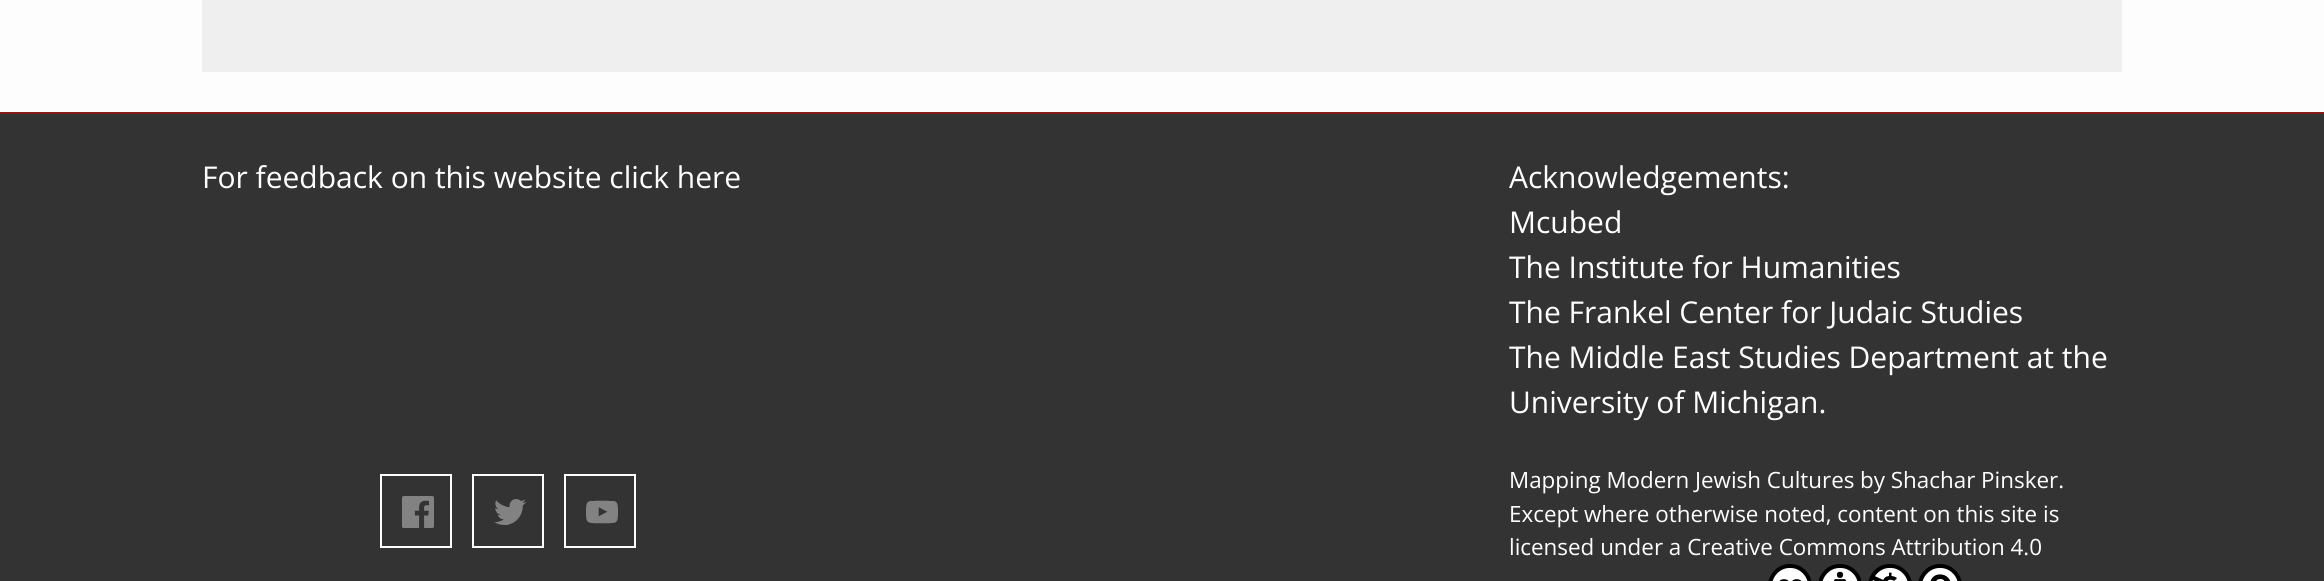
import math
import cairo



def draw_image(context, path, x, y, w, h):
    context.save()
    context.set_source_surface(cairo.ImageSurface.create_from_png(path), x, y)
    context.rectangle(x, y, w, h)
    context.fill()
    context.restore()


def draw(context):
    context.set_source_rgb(253 / 255, 253 / 255, 253 / 255)
    context.paint()
    context.set_source_rgb(239 / 255, 239 / 255, 239 / 255)
    context.rectangle(202, 0, 1920, 72)
    context.fill()
    context.set_source_rgb(51 / 255, 51 / 255, 51 / 255)
    context.rectangle(0, 114, 2324, 467)
    context.fill()
    context.set_source_rgb(133 / 255, 26 / 255, 26 / 255)
    context.rectangle(0, 112, 2324, 2)
    context.fill()
    context.rectangle(381, 475, 70, 72)
    context.set_source_rgb(1, 1, 1)
    context.stroke()
    draw_image(context, "images/1.png", 402, 496, 32, 32)
    context.rectangle(473, 475, 70, 72)
    context.stroke()
    draw_image(context, "images/2.png", 494, 499, 32, 26)
    context.rectangle(565, 475, 70, 72)
    context.stroke()
    draw_image(context, "images/3.png", 586, 500, 32, 24)
    draw_image(context, "images/4.png", 1768, 564, 44, 17)
    draw_image(context, "images/5.png", 1818, 564, 44, 17)
    draw_image(context, "images/6.png", 1868, 564, 44, 17)
    draw_image(context, "images/7.png", 1918, 564, 44, 17)
    context.select_font_face("Open Sans")
    context.set_font_size(30)
    context.move_to(202, 188)
    context.show_text("For feedback on this website click here")
    context.move_to(1509, 188)
    context.show_text("Acknowledgements:")
    context.move_to(1509, 233)
    context.show_text("Mcubed")
    context.move_to(1509, 278)
    context.show_text("The Institute for Humanities")
    context.move_to(1509, 323)
    context.show_text("The Frankel Center for Judaic Studies")
    context.move_to(1509, 368)
    context.show_text("The Middle East Studies Department at the")
    context.move_to(1509, 413)
    context.show_text("University of Michigan.")
    context.set_font_size(22.4)
    context.move_to(1509, 488)
    context.show_text("Mapping Modern Jewish Cultures")
    context.move_to(1860, 488)
    context.show_text("by Shachar Pinsker.")
    context.move_to(1509, 522)
    context.show_text("Except where otherwise noted, content on this site is")
    context.move_to(1509, 555)
    context.show_text("licensed under a Creative Commons Attribution 4.0")


surface = cairo.ImageSurface(cairo.Format.RGB24, 2324, 581)
context = cairo.Context(surface)
options = cairo.FontOptions()
options.set_hint_metrics(cairo.HintMetrics.OFF)
options.set_hint_style(cairo.HintStyle.NONE)
context.set_font_options(options)
context.set_miter_limit(4)
draw(context)
surface.write_to_png("out.png")
